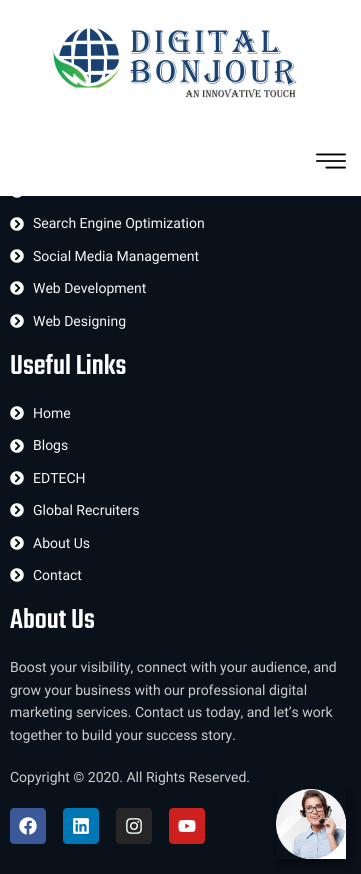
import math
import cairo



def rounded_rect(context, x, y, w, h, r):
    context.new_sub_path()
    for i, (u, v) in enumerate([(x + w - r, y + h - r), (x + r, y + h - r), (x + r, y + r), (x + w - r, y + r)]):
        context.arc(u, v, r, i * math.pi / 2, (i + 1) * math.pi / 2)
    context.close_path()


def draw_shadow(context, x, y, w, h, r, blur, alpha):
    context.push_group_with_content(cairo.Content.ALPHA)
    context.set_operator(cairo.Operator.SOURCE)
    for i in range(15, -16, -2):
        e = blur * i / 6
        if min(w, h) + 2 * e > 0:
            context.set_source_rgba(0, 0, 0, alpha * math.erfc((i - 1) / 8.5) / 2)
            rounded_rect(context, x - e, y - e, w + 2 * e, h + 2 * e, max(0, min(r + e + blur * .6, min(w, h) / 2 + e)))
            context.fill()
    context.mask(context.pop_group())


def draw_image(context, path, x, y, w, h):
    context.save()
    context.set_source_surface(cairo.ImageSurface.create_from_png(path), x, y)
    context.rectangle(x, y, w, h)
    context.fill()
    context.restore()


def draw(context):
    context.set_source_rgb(9 / 255, 17 / 255, 26 / 255)
    context.paint()
    draw_image(context, "images/3.png", 12, 196, 10, 2)
    context.set_source_rgb(0, 0, 0)
    draw_shadow(context, 0, 0, 361, 196, 0, 5, 0.1)
    context.set_source_rgb(1, 1, 1)
    context.rectangle(0, 0, 361, 196)
    context.fill()
    draw_image(context, "images/1.png", 53, 28, 244, 70)
    draw_image(context, "images/2.png", 316, 153, 30, 16)
    draw_image(context, "images/4.png", 10, 217, 14, 14)
    draw_image(context, "images/4.png", 10, 249, 14, 14)
    draw_image(context, "images/4.png", 10, 281, 14, 14)
    draw_image(context, "images/4.png", 10, 314, 14, 14)
    draw_image(context, "images/4.png", 10, 406, 14, 14)
    draw_image(context, "images/4.png", 10, 439, 14, 14)
    draw_image(context, "images/4.png", 10, 471, 14, 14)
    draw_image(context, "images/4.png", 10, 503, 14, 14)
    draw_image(context, "images/4.png", 10, 536, 14, 14)
    draw_image(context, "images/4.png", 10, 568, 14, 14)
    context.set_source_rgb(59 / 255, 89 / 255, 152 / 255)
    rounded_rect(context, 10, 808, 36, 36, 4)
    context.fill()
    draw_image(context, "images/5.png", 19, 817, 18, 18)
    context.set_source_rgb(0, 119 / 255, 181 / 255)
    rounded_rect(context, 63, 808, 36, 36, 4)
    context.fill()
    draw_image(context, "images/6.png", 73, 818, 16, 16)
    context.set_source_rgb(38 / 255, 38 / 255, 38 / 255)
    rounded_rect(context, 116, 808, 36, 36, 4)
    context.fill()
    draw_image(context, "images/7.png", 126, 818, 16, 16)
    context.set_source_rgb(205 / 255, 32 / 255, 31 / 255)
    rounded_rect(context, 169, 808, 36, 36, 4)
    context.fill()
    draw_image(context, "images/8.png", 178, 820, 18, 12)
    context.set_source_rgb(1, 1, 1)
    context.rectangle(306, 819, 40, 40)
    context.fill()
    context.save()
    context.set_fill_rule(cairo.FillRule.EVEN_ODD)
    context.new_path()
    context.move_to(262, 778)
    context.line_to(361, 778)
    context.line_to(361, 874)
    context.line_to(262, 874)
    context.close_path()
    context.move_to(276, 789)
    context.line_to(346, 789)
    context.line_to(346, 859)
    context.line_to(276, 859)
    context.close_path()
    context.clip()
    context.set_source_rgb(0, 0, 0)
    draw_shadow(context, 278, 794, 70, 70, 0, 5, 0.5)
    context.restore()
    draw_image(context, "images/9.png", 276, 789, 70, 70)
    context.select_font_face("Roboto")
    context.set_font_size(14)
    context.set_source_rgb(246 / 255, 246 / 255, 246 / 255)
    context.move_to(33, 228)
    context.show_text("Search Engine Optimization")
    context.move_to(33, 261)
    context.show_text("Social Media Management")
    context.move_to(33, 293)
    context.show_text("Web Development")
    context.move_to(33, 326)
    context.show_text("Web Designing")
    context.select_font_face("Teko Medium")
    context.set_font_size(30)
    context.set_source_rgb(1, 1, 1)
    context.move_to(10, 374)
    context.show_text("Useful Links")
    context.select_font_face("Roboto")
    context.set_font_size(14)
    context.set_source_rgb(246 / 255, 246 / 255, 246 / 255)
    context.move_to(33, 418)
    context.show_text("Home")
    context.move_to(33, 450)
    context.show_text("Blogs")
    context.move_to(33, 483)
    context.show_text("EDTECH")
    context.move_to(33, 515)
    context.show_text("Global Recruiters")
    context.move_to(33, 548)
    context.show_text("About Us")
    context.move_to(33, 580)
    context.show_text("Contact")
    context.select_font_face("Teko Medium")
    context.set_font_size(30)
    context.set_source_rgb(1, 1, 1)
    context.move_to(10, 628)
    context.show_text("About Us")
    context.select_font_face("Roboto")
    context.set_font_size(14)
    context.set_source_rgb(204 / 255, 204 / 255, 204 / 255)
    context.move_to(10, 672)
    context.show_text("Boost your visibility, connect with your audience, and")
    context.move_to(10, 695)
    context.show_text("grow your business with our professional digital")
    context.move_to(10, 717)
    context.show_text("marketing services. Contact us today, and let’s work")
    context.move_to(10, 740)
    context.show_text("together to build your success story.")
    context.move_to(10, 782)
    context.show_text("Copyright © 2020. All Rights Reserved.")


surface = cairo.ImageSurface(cairo.Format.RGB24, 361, 874)
context = cairo.Context(surface)
options = cairo.FontOptions()
options.set_hint_metrics(cairo.HintMetrics.OFF)
options.set_hint_style(cairo.HintStyle.NONE)
context.set_font_options(options)
context.set_miter_limit(4)
draw(context)
surface.write_to_png("out.png")
